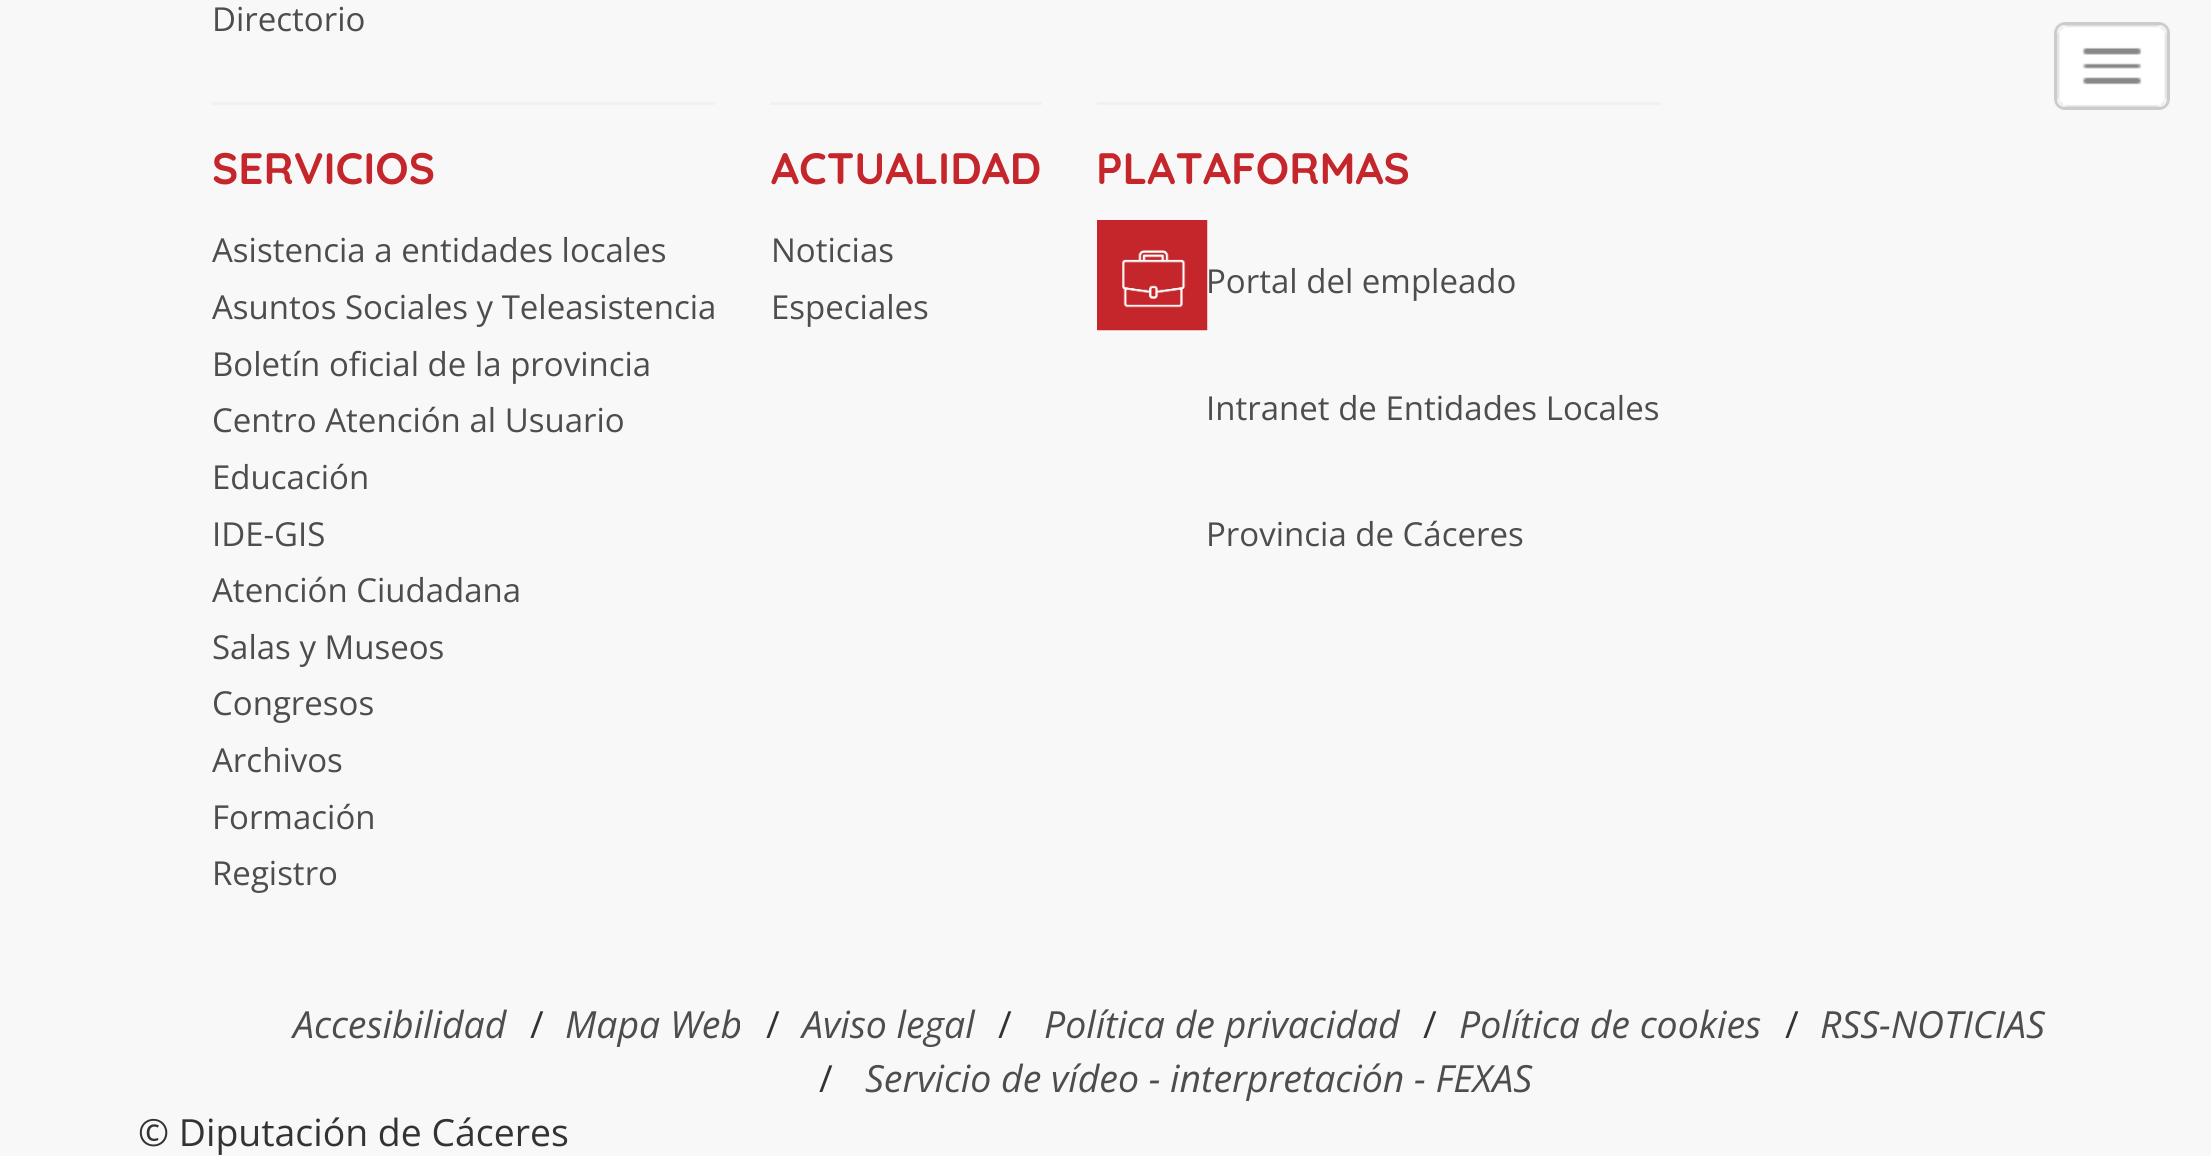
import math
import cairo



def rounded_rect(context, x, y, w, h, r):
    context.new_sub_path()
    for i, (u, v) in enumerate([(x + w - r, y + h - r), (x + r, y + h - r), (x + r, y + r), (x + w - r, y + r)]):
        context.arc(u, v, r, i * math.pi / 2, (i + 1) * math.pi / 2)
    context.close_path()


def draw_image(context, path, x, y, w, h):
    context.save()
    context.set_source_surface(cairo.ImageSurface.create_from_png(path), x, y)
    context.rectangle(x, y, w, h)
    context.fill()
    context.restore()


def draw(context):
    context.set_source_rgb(248 / 255, 248 / 255, 248 / 255)
    context.paint()
    context.set_source_rgb(241 / 255, 241 / 255, 241 / 255)
    context.rectangle(212, 102, 503, 3)
    context.fill()
    context.rectangle(770, 102, 272, 3)
    context.fill()
    context.rectangle(1097, 102, 564, 3)
    context.fill()
    context.set_source_rgb(196 / 255, 38 / 255, 43 / 255)
    context.rectangle(1097, 220, 110, 110)
    context.fill()
    draw_image(context, "images/1.png", 1097, 220, 111, 111)
    context.set_source_rgb(1, 1, 1)
    rounded_rect(context, 2054, 22, 116, 88, 11)
    context.fill()
    draw_image(context, "images/2.png", 2057, 25, 110, 82)
    rounded_rect(context, 2055.5, 23.5, 113, 85, 9.5)
    context.set_source_rgb(204 / 255, 204 / 255, 204 / 255)
    context.set_line_width(3)
    context.stroke()
    context.select_font_face("Open Sans")
    context.set_font_size(33)
    context.set_source_rgb(77 / 255, 77 / 255, 77 / 255)
    context.move_to(212, 31)
    context.show_text("Directorio")
    context.select_font_face("Quicksand", cairo.FontSlant.NORMAL, cairo.FontWeight.BOLD)
    context.set_font_size(44)
    context.set_source_rgb(196 / 255, 38 / 255, 43 / 255)
    context.move_to(212, 184)
    context.show_text("SERVICIOS")
    context.select_font_face("Open Sans")
    context.set_font_size(33)
    context.set_source_rgb(77 / 255, 77 / 255, 77 / 255)
    context.move_to(212, 262)
    context.show_text("Asistencia a entidades locales")
    context.move_to(212, 319)
    context.show_text("Asuntos Sociales y Teleasistencia")
    context.move_to(212, 376)
    context.show_text("Boletín oficial de la provincia")
    context.move_to(212, 432)
    context.show_text("Centro Atención al Usuario")
    context.move_to(212, 489)
    context.show_text("Educación")
    context.move_to(212, 546)
    context.show_text("IDE-GIS")
    context.move_to(212, 602)
    context.show_text("Atención Ciudadana")
    context.move_to(212, 659)
    context.show_text("Salas y Museos")
    context.move_to(212, 715)
    context.show_text("Congresos")
    context.move_to(212, 772)
    context.show_text("Archivos")
    context.move_to(212, 829)
    context.show_text("Formación")
    context.move_to(212, 885)
    context.show_text("Registro")
    context.select_font_face("Quicksand", cairo.FontSlant.NORMAL, cairo.FontWeight.BOLD)
    context.set_font_size(44)
    context.set_source_rgb(196 / 255, 38 / 255, 43 / 255)
    context.move_to(771, 184)
    context.show_text("ACTUALIDAD")
    context.select_font_face("Open Sans")
    context.set_font_size(33)
    context.set_source_rgb(77 / 255, 77 / 255, 77 / 255)
    context.move_to(771, 262)
    context.show_text("Noticias")
    context.move_to(771, 319)
    context.show_text("Especiales")
    context.select_font_face("Quicksand", cairo.FontSlant.NORMAL, cairo.FontWeight.BOLD)
    context.set_font_size(44)
    context.set_source_rgb(196 / 255, 38 / 255, 43 / 255)
    context.move_to(1096, 184)
    context.show_text("PLATAFORMAS")
    context.select_font_face("Open Sans")
    context.set_font_size(33)
    context.set_source_rgb(77 / 255, 77 / 255, 77 / 255)
    context.move_to(1206, 293)
    context.show_text("Portal del empleado")
    context.move_to(1206, 420)
    context.show_text("Intranet de Entidades Locales")
    context.move_to(1206, 546)
    context.show_text("Provincia de Cáceres")
    context.select_font_face("Open Sans", cairo.FontSlant.ITALIC)
    context.set_font_size(37.4)
    context.move_to(293, 1038)
    context.show_text("Accesibilidad")
    context.select_font_face("Open Sans")
    context.set_source_rgb(51 / 255, 51 / 255, 51 / 255)
    context.move_to(530, 1038)
    context.show_text("/")
    context.select_font_face("Open Sans", cairo.FontSlant.ITALIC)
    context.set_source_rgb(77 / 255, 77 / 255, 77 / 255)
    context.move_to(565, 1038)
    context.show_text("Mapa Web")
    context.select_font_face("Open Sans")
    context.set_source_rgb(51 / 255, 51 / 255, 51 / 255)
    context.move_to(766, 1038)
    context.show_text("/")
    context.select_font_face("Open Sans", cairo.FontSlant.ITALIC)
    context.set_source_rgb(77 / 255, 77 / 255, 77 / 255)
    context.move_to(802, 1038)
    context.show_text("Aviso legal")
    context.select_font_face("Open Sans")
    context.set_source_rgb(51 / 255, 51 / 255, 51 / 255)
    context.move_to(998, 1038)
    context.show_text("/")
    context.select_font_face("Open Sans", cairo.FontSlant.ITALIC)
    context.set_source_rgb(77 / 255, 77 / 255, 77 / 255)
    context.move_to(1044, 1038)
    context.show_text("Política de privacidad")
    context.select_font_face("Open Sans")
    context.set_source_rgb(51 / 255, 51 / 255, 51 / 255)
    context.move_to(1423, 1038)
    context.show_text("/")
    context.select_font_face("Open Sans", cairo.FontSlant.ITALIC)
    context.set_source_rgb(77 / 255, 77 / 255, 77 / 255)
    context.move_to(1459, 1038)
    context.show_text("Política de cookies")
    context.select_font_face("Open Sans")
    context.set_source_rgb(51 / 255, 51 / 255, 51 / 255)
    context.move_to(1785, 1038)
    context.show_text("/")
    context.select_font_face("Open Sans", cairo.FontSlant.ITALIC)
    context.set_source_rgb(77 / 255, 77 / 255, 77 / 255)
    context.move_to(1820, 1038)
    context.show_text("RSS-NOTICIAS")
    context.select_font_face("Open Sans")
    context.set_source_rgb(51 / 255, 51 / 255, 51 / 255)
    context.move_to(819, 1092)
    context.show_text("/")
    context.select_font_face("Open Sans", cairo.FontSlant.ITALIC)
    context.set_source_rgb(77 / 255, 77 / 255, 77 / 255)
    context.move_to(865, 1092)
    context.show_text("Servicio de vídeo - interpretación - FEXAS")
    context.select_font_face("Open Sans")
    context.set_source_rgb(51 / 255, 51 / 255, 51 / 255)
    context.move_to(138, 1146)
    context.show_text("© Diputación de Cáceres")


surface = cairo.ImageSurface(cairo.Format.RGB24, 2211, 1156)
context = cairo.Context(surface)
options = cairo.FontOptions()
options.set_hint_metrics(cairo.HintMetrics.OFF)
options.set_hint_style(cairo.HintStyle.NONE)
context.set_font_options(options)
context.set_miter_limit(4)
draw(context)
surface.write_to_png("out.png")
